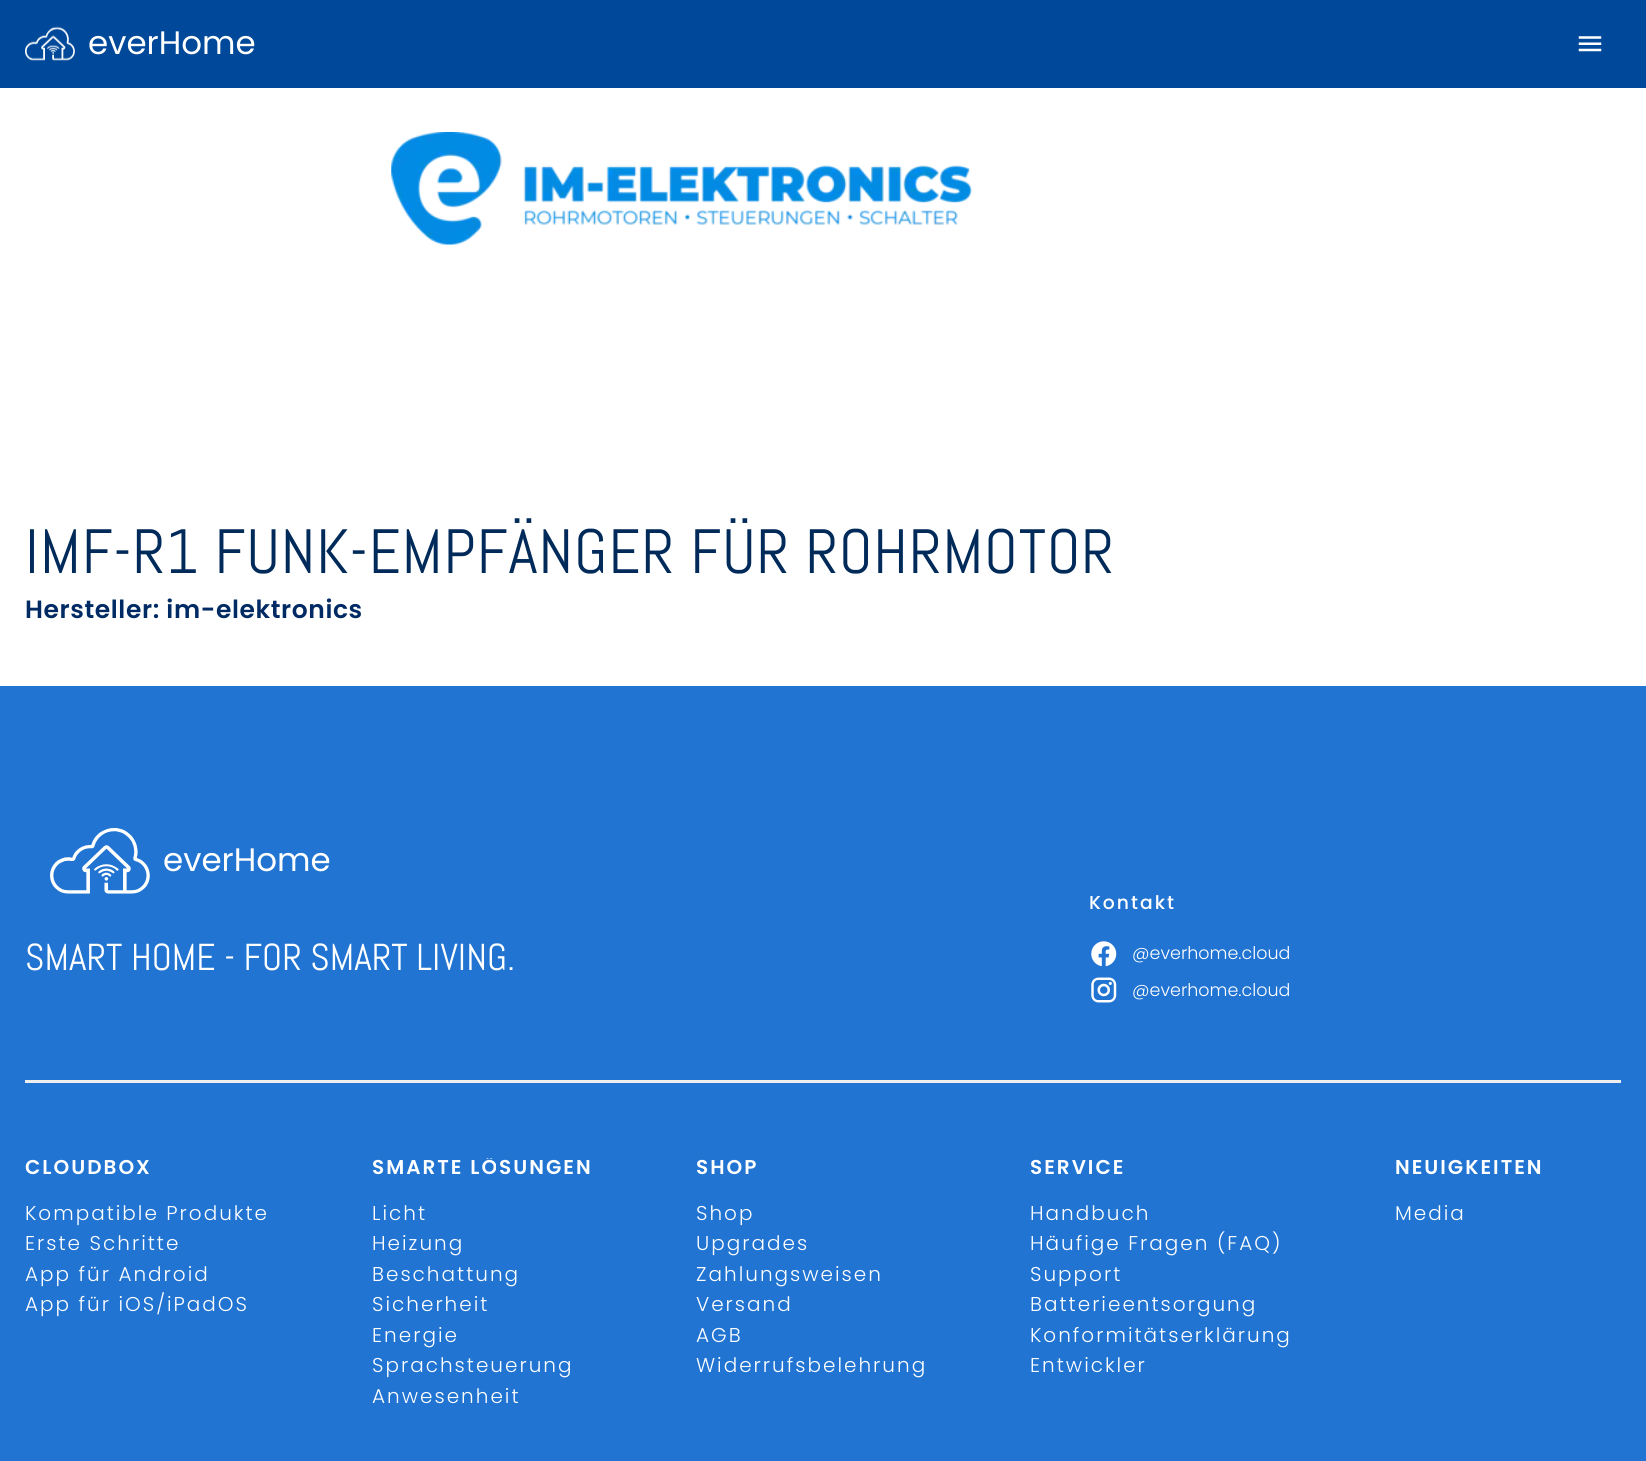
import math
import cairo



def draw_spaced(context, x, y, s, letter, word):
    context.move_to(x, y)
    for ch in s:
        context.show_text(ch)
        context.rel_move_to(letter + word * (ch == ' '), 0)


def draw_image(context, path, x, y, w, h):
    context.save()
    context.set_source_surface(cairo.ImageSurface.create_from_png(path), x, y)
    context.rectangle(x, y, w, h)
    context.fill()
    context.restore()


def draw(context):
    context.set_source_rgb(1, 1, 1)
    context.paint()
    context.set_source_rgb(0, 72 / 255, 153 / 255)
    context.rectangle(0, 0, 1646, 88)
    context.fill()
    draw_image(context, "images/1.png", 25, 26, 50, 35)
    draw_image(context, "images/2.png", 1578, 36, 24, 16)
    draw_image(context, "images/3.png", 391, 132, 581, 113)
    context.set_source_rgb(33 / 255, 116 / 255, 210 / 255)
    context.rectangle(0, 686, 1646, 775)
    context.fill()
    draw_image(context, "images/4.png", 50, 828, 100, 66)
    draw_image(context, "images/5.png", 1091, 941, 26, 26)
    draw_image(context, "images/6.png", 1091, 977, 26, 26)
    context.set_source_rgb(238 / 255, 238 / 255, 238 / 255)
    context.rectangle(25, 1080, 1596, 3)
    context.fill()
    context.select_font_face("Poppins")
    context.set_font_size(32.5)
    context.set_source_rgb(1, 1, 1)
    context.move_to(88, 54)
    context.show_text("everHome")
    context.select_font_face("Abel")
    context.set_font_size(62.5)
    context.set_source_rgb(0, 42 / 255, 89 / 255)
    draw_spaced(context, 25, 573, "IMF-R1 FUNK-EMPFÄNGER FÜR ROHRMOTOR", 0.95, 0)
    context.select_font_face("Poppins SemiBold")
    context.set_font_size(25)
    context.set_source_rgb(0, 42 / 255, 100 / 255)
    draw_spaced(context, 25, 618, "Hersteller: im-elektronics", 0.6, 0)
    context.select_font_face("Poppins")
    context.set_font_size(32.5)
    context.set_source_rgb(1, 1, 1)
    context.move_to(163, 871)
    context.show_text("everHome")
    context.select_font_face("Abel")
    context.set_font_size(37.5)
    context.move_to(25, 970)
    context.show_text("SMART HOME - FOR SMART LIVING.")
    context.select_font_face("Poppins Medium")
    context.set_font_size(18.75)
    draw_spaced(context, 1089, 909, "Kontakt", 2, 0)
    context.select_font_face("Poppins Light")
    context.set_font_size(17.5)
    context.move_to(1132, 959)
    context.show_text("@everhome.cloud")
    context.move_to(1132, 996)
    context.show_text("@everhome.cloud")
    context.select_font_face("Poppins SemiBold")
    context.set_font_size(20)
    draw_spaced(context, 25, 1174, "CLOUDBOX", 2, 0)
    context.select_font_face("Poppins Light")
    draw_spaced(context, 25, 1220, "Kompatible Produkte", 2, 0)
    draw_spaced(context, 25, 1250, "Erste Schritte", 2, 0)
    draw_spaced(context, 25, 1281, "App für Android", 2, 0)
    draw_spaced(context, 25, 1311, "App für iOS/iPadOS", 2, 0)
    context.save()
    context.rectangle(373, 1158, 298, 255)
    context.clip()
    context.select_font_face("Poppins SemiBold")
    draw_spaced(context, 372, 1174, "SMARTE LÖSUNGEN", 2, 0)
    context.restore()
    draw_spaced(context, 372, 1220, "Licht", 2, 0)
    draw_spaced(context, 372, 1250, "Heizung", 2, 0)
    draw_spaced(context, 372, 1281, "Beschattung", 2, 0)
    draw_spaced(context, 372, 1311, "Sicherheit", 2, 0)
    draw_spaced(context, 372, 1342, "Energie", 2, 0)
    draw_spaced(context, 372, 1372, "Sprachsteuerung", 2, 0)
    draw_spaced(context, 372, 1403, "Anwesenheit", 2, 0)
    context.select_font_face("Poppins SemiBold")
    draw_spaced(context, 696, 1174, "SHOP", 2, 0)
    context.select_font_face("Poppins Light")
    draw_spaced(context, 696, 1220, "Shop", 2, 0)
    draw_spaced(context, 696, 1250, "Upgrades", 2, 0)
    draw_spaced(context, 696, 1281, "Zahlungsweisen", 2, 0)
    draw_spaced(context, 696, 1311, "Versand", 2, 0)
    draw_spaced(context, 696, 1342, "AGB", 2, 0)
    draw_spaced(context, 696, 1372, "Widerrufsbelehrung", 2, 0)
    context.select_font_face("Poppins SemiBold")
    draw_spaced(context, 1030, 1174, "SERVICE", 2, 0)
    context.select_font_face("Poppins Light")
    draw_spaced(context, 1030, 1220, "Handbuch", 2, 0)
    draw_spaced(context, 1030, 1250, "Häufige Fragen (FAQ)", 2, 0)
    draw_spaced(context, 1030, 1281, "Support", 2, 0)
    draw_spaced(context, 1030, 1311, "Batterieentsorgung", 2, 0)
    draw_spaced(context, 1030, 1342, "Konformitätserklärung", 2, 0)
    draw_spaced(context, 1030, 1372, "Entwickler", 2, 0)
    context.select_font_face("Poppins SemiBold")
    draw_spaced(context, 1395, 1174, "NEUIGKEITEN", 2, 0)
    context.select_font_face("Poppins Light")
    draw_spaced(context, 1395, 1220, "Media", 2, 0)


surface = cairo.ImageSurface(cairo.Format.RGB24, 1646, 1461)
context = cairo.Context(surface)
options = cairo.FontOptions()
options.set_hint_metrics(cairo.HintMetrics.OFF)
options.set_hint_style(cairo.HintStyle.NONE)
context.set_font_options(options)
context.set_miter_limit(4)
draw(context)
surface.write_to_png("out.png")
